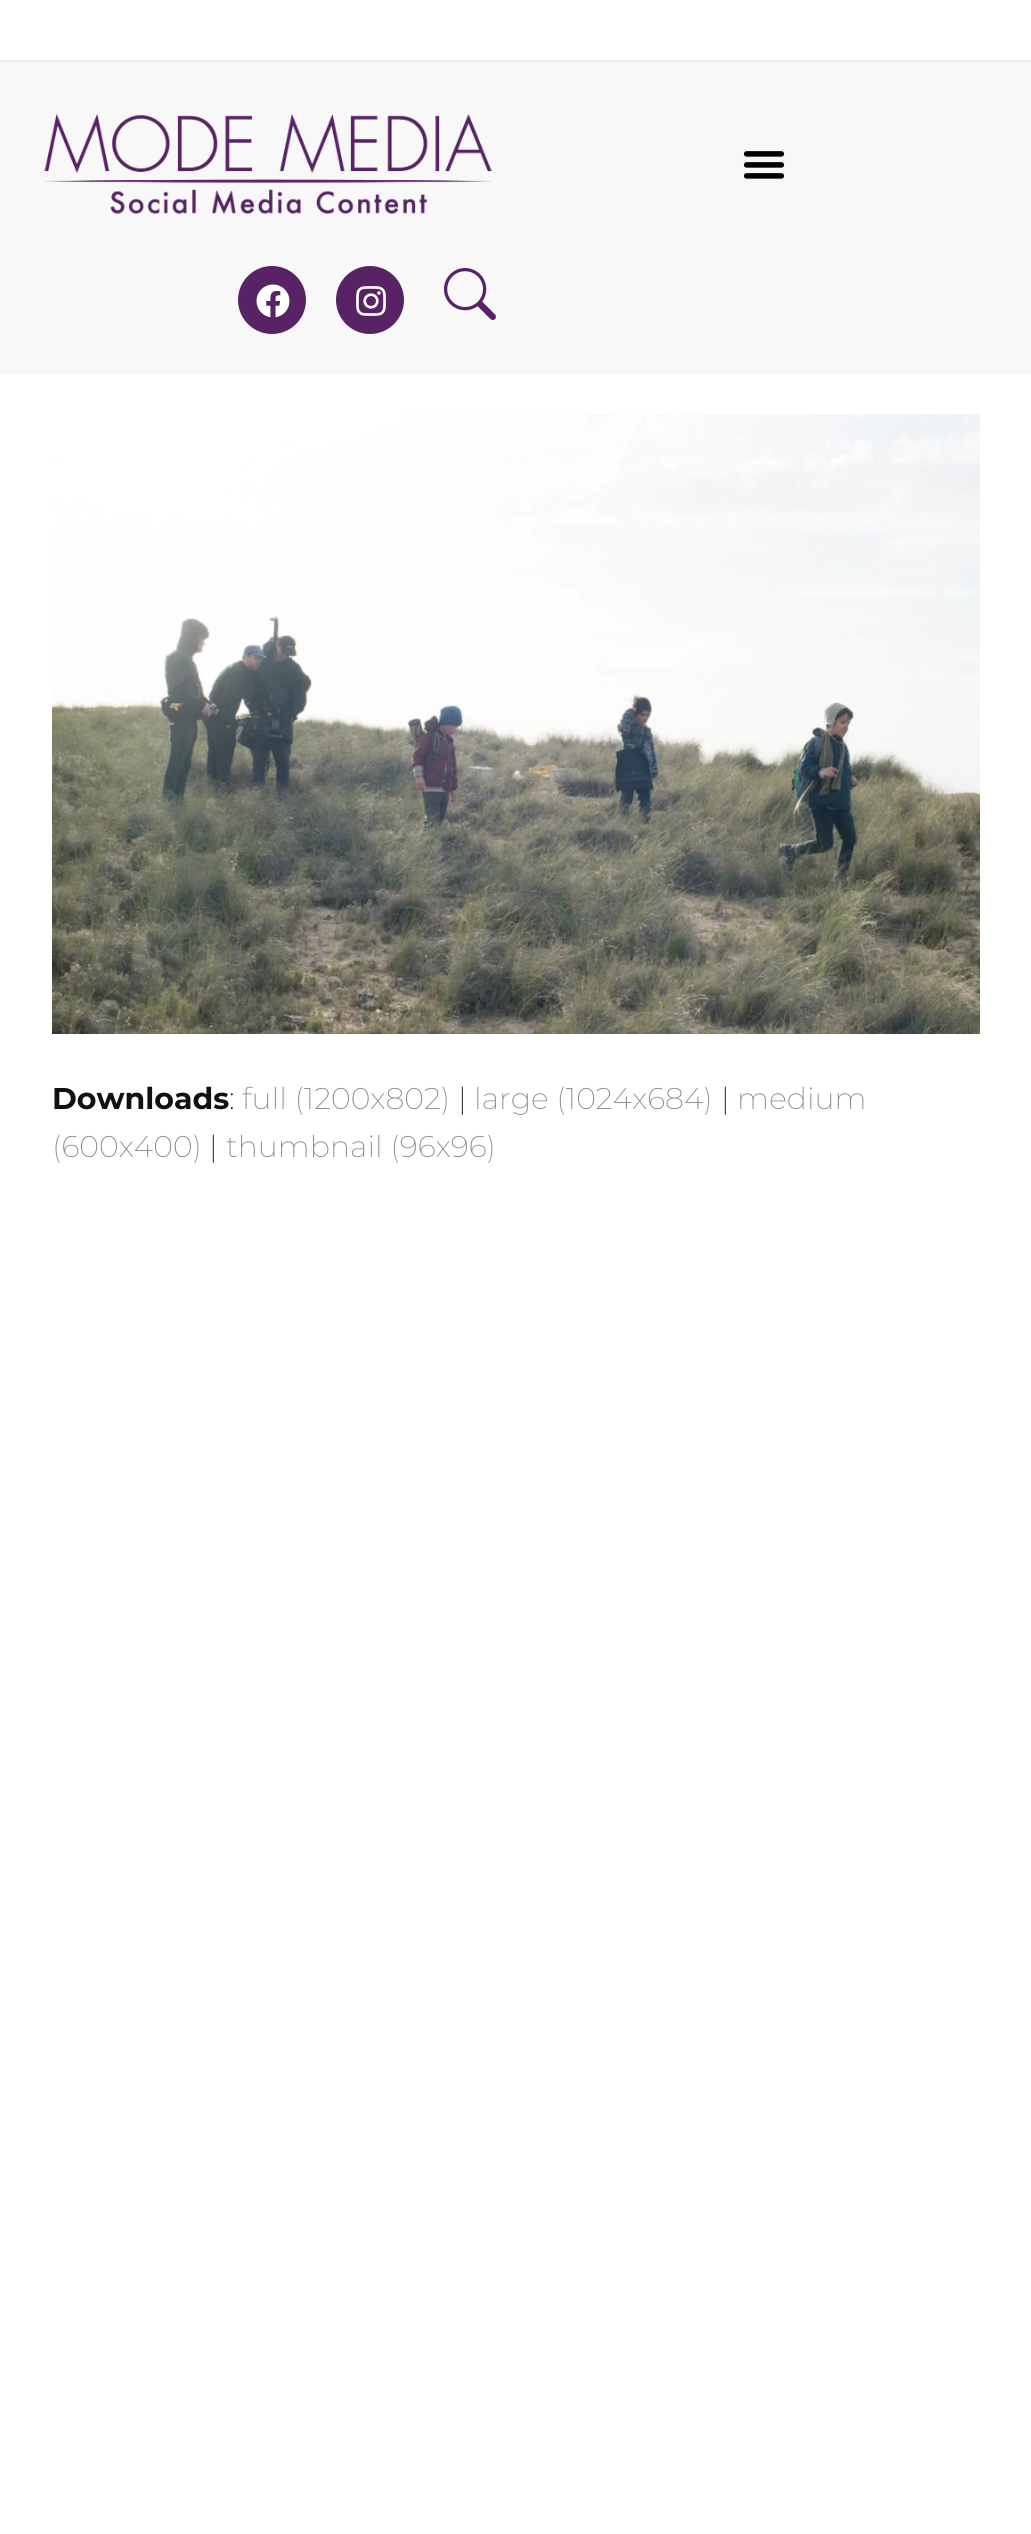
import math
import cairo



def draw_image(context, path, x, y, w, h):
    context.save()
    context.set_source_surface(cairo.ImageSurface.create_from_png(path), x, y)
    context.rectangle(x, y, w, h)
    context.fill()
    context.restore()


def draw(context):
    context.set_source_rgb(1, 1, 1)
    context.paint()
    context.set_source_rgb(238 / 255, 238 / 255, 238 / 255)
    context.rectangle(0, 60, 1031, 2)
    context.fill()
    context.set_source_rgb(248 / 255, 248 / 255, 248 / 255)
    context.rectangle(0, 62, 1031, 312)
    context.fill()
    draw_image(context, "images/1.png", 44, 114, 448, 101)
    draw_image(context, "images/2.png", 743, 151, 42, 28)
    context.set_source_rgb(87 / 255, 35 / 255, 100 / 255)
    context.arc(272, 300, 34, 0, 2 * math.pi)
    context.fill()
    draw_image(context, "images/3.png", 256, 284, 34, 34)
    context.arc(370, 300, 34, 0, 2 * math.pi)
    context.fill()
    draw_image(context, "images/4.png", 356, 286, 30, 30)
    draw_image(context, "images/5.png", 444, 268, 52, 52)
    draw_image(context, "images/6.png", 52, 414, 928, 620)
    context.select_font_face("Montserrat", cairo.FontSlant.NORMAL, cairo.FontWeight.BOLD)
    context.set_font_size(30)
    context.set_source_rgb(17 / 255, 17 / 255, 17 / 255)
    context.move_to(52, 1109)
    context.show_text("Downloads")
    context.select_font_face("Montserrat ExtraLight")
    context.move_to(229, 1109)
    context.show_text(":")
    context.set_source_rgb(137 / 255, 137 / 255, 137 / 255)
    context.move_to(242, 1109)
    context.show_text("full (1200x802)")
    context.set_source_rgb(17 / 255, 17 / 255, 17 / 255)
    context.move_to(458, 1109)
    context.show_text("|")
    context.set_source_rgb(137 / 255, 137 / 255, 137 / 255)
    context.move_to(474, 1109)
    context.show_text("large (1024x684)")
    context.set_source_rgb(17 / 255, 17 / 255, 17 / 255)
    context.move_to(721, 1109)
    context.show_text("|")
    context.set_source_rgb(137 / 255, 137 / 255, 137 / 255)
    context.move_to(737, 1109)
    context.show_text("medium")
    context.move_to(52, 1157)
    context.show_text("(600x400)")
    context.set_source_rgb(17 / 255, 17 / 255, 17 / 255)
    context.move_to(209, 1157)
    context.show_text("|")
    context.set_source_rgb(137 / 255, 137 / 255, 137 / 255)
    context.move_to(226, 1157)
    context.show_text("thumbnail (96x96)")


surface = cairo.ImageSurface(cairo.Format.RGB24, 1031, 2534)
context = cairo.Context(surface)
options = cairo.FontOptions()
options.set_hint_metrics(cairo.HintMetrics.OFF)
options.set_hint_style(cairo.HintStyle.NONE)
context.set_font_options(options)
context.set_miter_limit(4)
draw(context)
surface.write_to_png("out.png")
